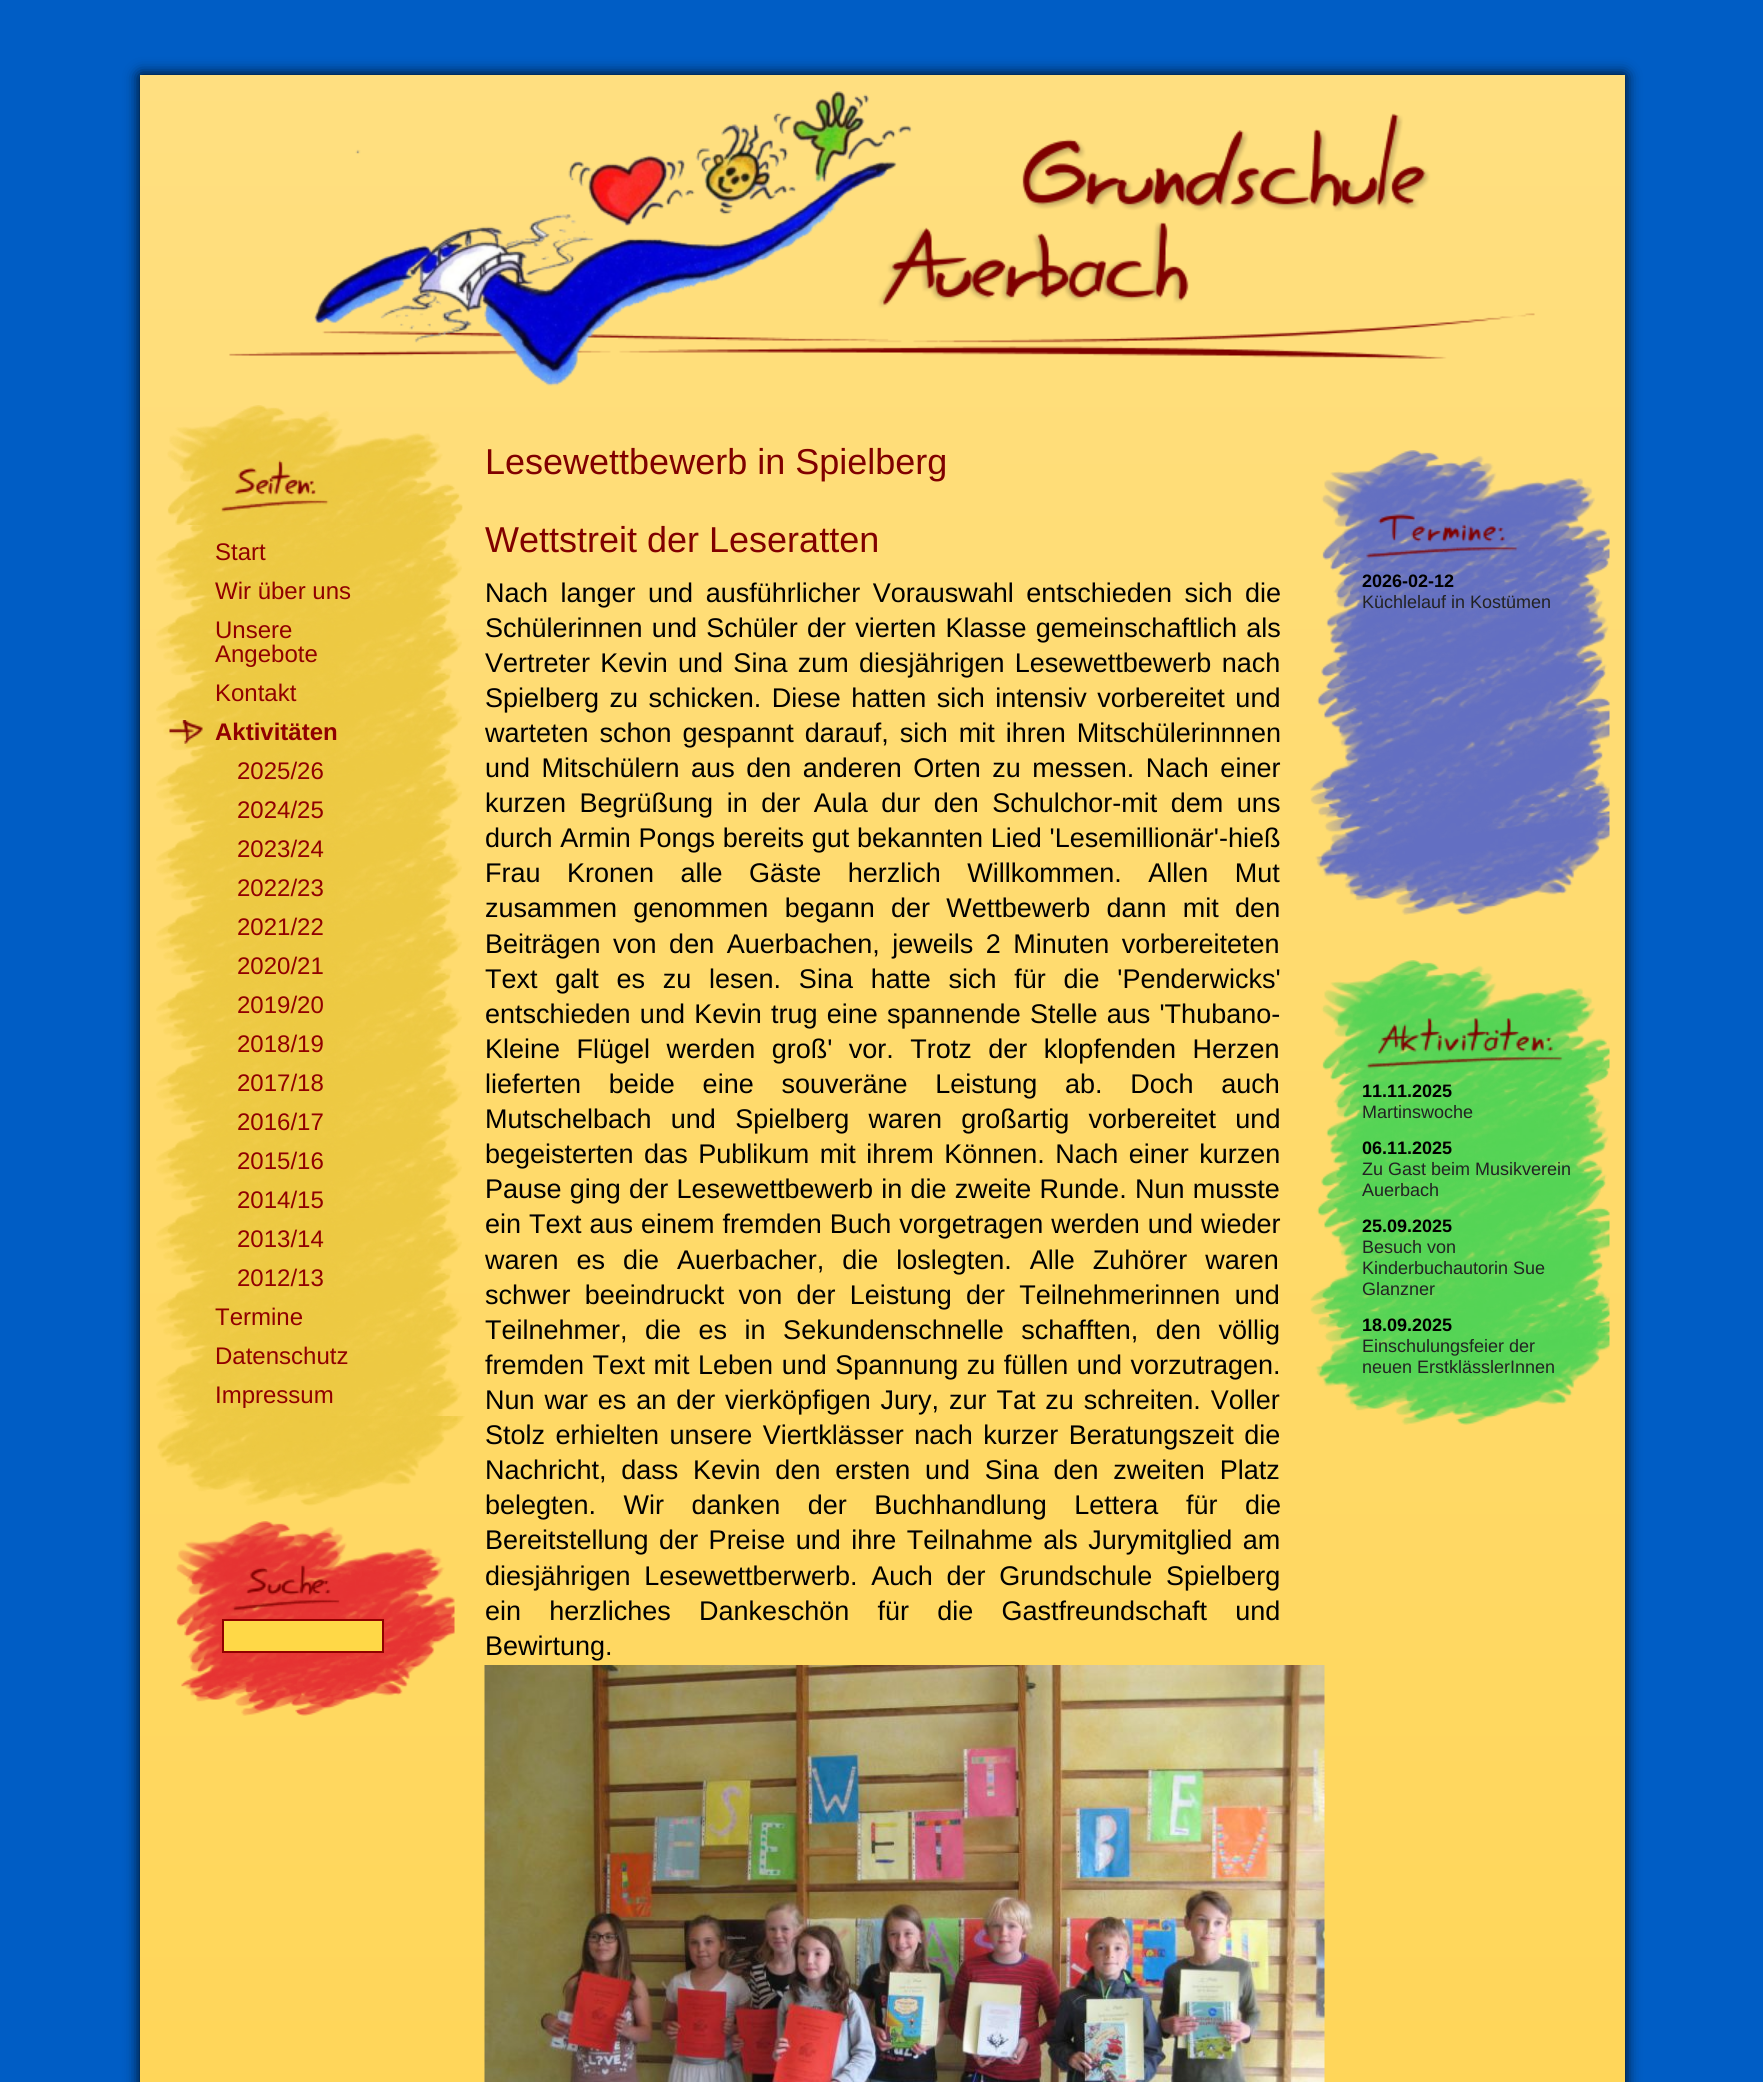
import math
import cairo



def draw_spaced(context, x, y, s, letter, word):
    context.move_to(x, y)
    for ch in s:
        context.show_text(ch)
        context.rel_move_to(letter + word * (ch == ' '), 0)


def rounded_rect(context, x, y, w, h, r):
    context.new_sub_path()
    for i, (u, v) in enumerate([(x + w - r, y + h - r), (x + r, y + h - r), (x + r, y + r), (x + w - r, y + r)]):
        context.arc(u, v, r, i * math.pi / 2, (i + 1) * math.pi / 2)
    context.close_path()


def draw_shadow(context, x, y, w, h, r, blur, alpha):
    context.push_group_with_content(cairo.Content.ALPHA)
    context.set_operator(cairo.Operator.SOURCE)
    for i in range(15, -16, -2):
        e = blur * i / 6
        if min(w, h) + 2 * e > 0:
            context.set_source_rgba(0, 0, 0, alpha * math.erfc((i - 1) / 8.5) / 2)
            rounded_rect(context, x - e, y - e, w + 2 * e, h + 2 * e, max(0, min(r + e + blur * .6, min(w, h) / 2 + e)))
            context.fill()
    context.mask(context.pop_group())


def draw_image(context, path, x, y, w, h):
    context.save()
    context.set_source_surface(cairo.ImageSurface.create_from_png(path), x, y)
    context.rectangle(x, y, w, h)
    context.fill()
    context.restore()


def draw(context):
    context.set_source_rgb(0, 93 / 255, 197 / 255)
    context.paint()
    context.set_source_rgb(0, 0, 0)
    draw_shadow(context, 140, 75, 1485, 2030, 0, 7.5, 1)
    gradient = cairo.LinearGradient(882, 75, 882, 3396)
    gradient.add_color_stop_rgba(0, 1, 223 / 255, 128 / 255, 1)
    gradient.add_color_stop_rgba(1, 1, 208 / 255, 64 / 255, 1)
    context.set_source(gradient)
    context.rectangle(140, 75, 1485, 2007)
    context.fill()
    draw_image(context, "images/1.png", 229, 91, 1306, 295)
    draw_image(context, "images/2.png", 167, 405, 296, 120)
    draw_image(context, "images/3.png", 156, 525, 306, 891)
    draw_image(context, "images/4.png", 169, 720, 34, 24)
    draw_image(context, "images/5.png", 157, 1416, 308, 90)
    draw_image(context, "images/6.png", 175, 1521, 280, 195)
    context.set_source_rgb(1, 216 / 255, 71 / 255)
    context.rectangle(223, 1620, 160, 32)
    context.fill_preserve()
    context.set_source_rgb(144 / 255, 0, 0)
    context.stroke()
    draw_image(context, "images/7.png", 484, 1665, 841, 417)
    draw_image(context, "images/8.png", 1310, 450, 300, 465)
    draw_image(context, "images/9.png", 1310, 960, 300, 465)
    context.select_font_face("Liberation Sans")
    context.set_font_size(24)
    context.move_to(215, 560)
    context.show_text("Start")
    context.move_to(215, 599)
    context.show_text("Wir über uns")
    context.move_to(215, 638)
    context.show_text("Unsere")
    context.move_to(215, 662)
    context.show_text("Angebote")
    context.move_to(215, 701)
    context.show_text("Kontakt")
    context.select_font_face("Liberation Sans", cairo.FontSlant.NORMAL, cairo.FontWeight.BOLD)
    context.move_to(215, 740)
    context.show_text("Aktivitäten")
    context.select_font_face("Liberation Sans")
    context.move_to(237, 779)
    context.show_text("2025/26")
    context.move_to(237, 818)
    context.show_text("2024/25")
    context.move_to(237, 857)
    context.show_text("2023/24")
    context.move_to(237, 896)
    context.show_text("2022/23")
    context.move_to(237, 935)
    context.show_text("2021/22")
    context.move_to(237, 974)
    context.show_text("2020/21")
    context.move_to(237, 1013)
    context.show_text("2019/20")
    context.move_to(237, 1052)
    context.show_text("2018/19")
    context.move_to(237, 1091)
    context.show_text("2017/18")
    context.move_to(237, 1130)
    context.show_text("2016/17")
    context.move_to(237, 1169)
    context.show_text("2015/16")
    context.move_to(237, 1208)
    context.show_text("2014/15")
    context.move_to(237, 1247)
    context.show_text("2013/14")
    context.move_to(237, 1286)
    context.show_text("2012/13")
    context.move_to(215, 1325)
    context.show_text("Termine")
    context.move_to(215, 1364)
    context.show_text("Datenschutz")
    context.move_to(215, 1403)
    context.show_text("Impressum")
    context.set_font_size(36)
    context.set_source_rgb(128 / 255, 0, 0)
    context.move_to(485, 474)
    context.show_text("Lesewettbewerb in Spielberg")
    context.move_to(485, 552)
    context.show_text("Wettstreit der Leseratten")
    context.set_font_size(27)
    context.set_source_rgb(0, 0, 0)
    draw_spaced(context, 485, 602, "Nach langer und ausführlicher Vorauswahl entschieden sich die", 0, 5)
    draw_spaced(context, 485, 637, "Schülerinnen und Schüler der vierten Klasse gemeinschaftlich als", 0, 1.75)
    draw_spaced(context, 485, 672, "Vertreter Kevin und Sina zum diesjährigen Lesewettbewerb nach", 0, 2.75)
    draw_spaced(context, 485, 707, "Spielberg zu schicken. Diese hatten sich intensiv vorbereitet und", 0, 3)
    draw_spaced(context, 485, 742, "warteten schon gespannt darauf, sich mit ihren Mitschülerinnnen", 0, 3.5)
    draw_spaced(context, 485, 777, "und Mitschülern aus den anderen Orten zu messen. Nach einer", 0, 4)
    draw_spaced(context, 485, 812, "kurzen Begrüßung in der Aula dur den Schulchor-mit dem uns", 0, 6)
    draw_spaced(context, 485, 847, "durch Armin Pongs bereits gut bekannten Lied 'Lesemillionär'-hieß", 0, 0.25)
    draw_spaced(context, 485, 882, "Frau Kronen alle Gäste herzlich Willkommen. Allen Mut", 0, 19)
    draw_spaced(context, 485, 917, "zusammen genommen begann der Wettbewerb dann mit den", 0, 8.75)
    draw_spaced(context, 485, 953, "Beiträgen von den Auerbachen, jeweils 2 Minuten vorbereiteten", 0, 5)
    draw_spaced(context, 485, 988, "Text galt es zu lesen. Sina hatte sich für die 'Penderwicks'", 0, 10.25)
    draw_spaced(context, 485, 1023, "entschieden und Kevin trug eine spannende Stelle aus 'Thubano-", 0, 1.75)
    draw_spaced(context, 485, 1058, "Kleine Flügel werden groß' vor. Trotz der klopfenden Herzen", 0, 9)
    draw_spaced(context, 485, 1093, "lieferten beide eine souveräne Leistung ab. Doch auch", 0, 20.25)
    draw_spaced(context, 485, 1128, "Mutschelbach und Spielberg waren großartig vorbereitet und", 0, 11.75)
    draw_spaced(context, 485, 1163, "begeisterten das Publikum mit ihrem Können. Nach einer kurzen", 0, 3)
    draw_spaced(context, 485, 1198, "Pause ging der Lesewettbewerb in die zweite Runde. Nun musste", 0, 0.75)
    draw_spaced(context, 485, 1233, "ein Text aus einem fremden Buch vorgetragen werden und wieder", 0, 0.5)
    draw_spaced(context, 485, 1269, "waren es die Auerbacher, die loslegten. Alle Zuhörer waren", 0, 10.5)
    draw_spaced(context, 485, 1304, "schwer beeindruckt von der Leistung der Teilnehmerinnen und", 0, 6.75)
    draw_spaced(context, 485, 1339, "Teilnehmer, die es in Sekundenschnelle schafften, den völlig", 0, 10)
    draw_spaced(context, 485, 1374, "fremden Text mit Leben und Spannung zu füllen und vorzutragen.", 0, 1)
    draw_spaced(context, 485, 1409, "Nun war es an der vierköpfigen Jury, zur Tat zu schreiten. Voller", 0, 2.4)
    draw_spaced(context, 485, 1444, "Stolz erhielten unsere Viertklässer nach kurzer Beratungszeit die", 0, 3)
    draw_spaced(context, 485, 1479, "Nachricht, dass Kevin den ersten und Sina den zweiten Platz", 0, 7.25)
    draw_spaced(context, 485, 1514, "belegten. Wir danken der Buchhandlung Lettera für die", 0, 20)
    draw_spaced(context, 485, 1549, "Bereitstellung der Preise und ihre Teilnahme als Jurymitglied am", 0, 3)
    draw_spaced(context, 485, 1585, "diesjährigen Lesewettberwerb. Auch der Grundschule Spielberg", 0, 6.25)
    draw_spaced(context, 485, 1620, "ein herzliches Dankeschön für die Gastfreundschaft und", 0, 20.75)
    context.move_to(485, 1655)
    context.show_text("Bewirtung.")
    context.select_font_face("Liberation Sans", cairo.FontSlant.NORMAL, cairo.FontWeight.BOLD)
    context.set_font_size(18)
    context.move_to(1362, 587)
    context.show_text("2026-02-12")
    context.select_font_face("Liberation Sans")
    context.set_source_rgb(34 / 255, 34 / 255, 34 / 255)
    context.move_to(1362, 608)
    context.show_text("Küchlelauf in Kostümen")
    context.select_font_face("Liberation Sans", cairo.FontSlant.NORMAL, cairo.FontWeight.BOLD)
    context.set_source_rgb(0, 0, 0)
    context.move_to(1362, 1097)
    context.show_text("11.11.2025")
    context.select_font_face("Liberation Sans")
    context.set_source_rgb(34 / 255, 34 / 255, 34 / 255)
    context.move_to(1362, 1118)
    context.show_text("Martinswoche")
    context.select_font_face("Liberation Sans", cairo.FontSlant.NORMAL, cairo.FontWeight.BOLD)
    context.set_source_rgb(0, 0, 0)
    context.move_to(1362, 1154)
    context.show_text("06.11.2025")
    context.select_font_face("Liberation Sans")
    context.set_source_rgb(34 / 255, 34 / 255, 34 / 255)
    context.move_to(1362, 1175)
    context.show_text("Zu Gast beim Musikverein")
    context.move_to(1362, 1196)
    context.show_text("Auerbach")
    context.select_font_face("Liberation Sans", cairo.FontSlant.NORMAL, cairo.FontWeight.BOLD)
    context.set_source_rgb(0, 0, 0)
    context.move_to(1362, 1232)
    context.show_text("25.09.2025")
    context.select_font_face("Liberation Sans")
    context.set_source_rgb(34 / 255, 34 / 255, 34 / 255)
    context.move_to(1362, 1253)
    context.show_text("Besuch von")
    context.move_to(1362, 1274)
    context.show_text("Kinderbuchautorin Sue")
    context.move_to(1362, 1295)
    context.show_text("Glanzner")
    context.select_font_face("Liberation Sans", cairo.FontSlant.NORMAL, cairo.FontWeight.BOLD)
    context.set_source_rgb(0, 0, 0)
    context.move_to(1362, 1331)
    context.show_text("18.09.2025")
    context.select_font_face("Liberation Sans")
    context.set_source_rgb(34 / 255, 34 / 255, 34 / 255)
    context.move_to(1362, 1352)
    context.show_text("Einschulungsfeier der")
    context.move_to(1362, 1373)
    context.show_text("neuen ErstklässlerInnen")


surface = cairo.ImageSurface(cairo.Format.RGB24, 1763, 2082)
context = cairo.Context(surface)
options = cairo.FontOptions()
options.set_hint_metrics(cairo.HintMetrics.OFF)
options.set_hint_style(cairo.HintStyle.NONE)
context.set_font_options(options)
context.set_miter_limit(4)
draw(context)
surface.write_to_png("out.png")
